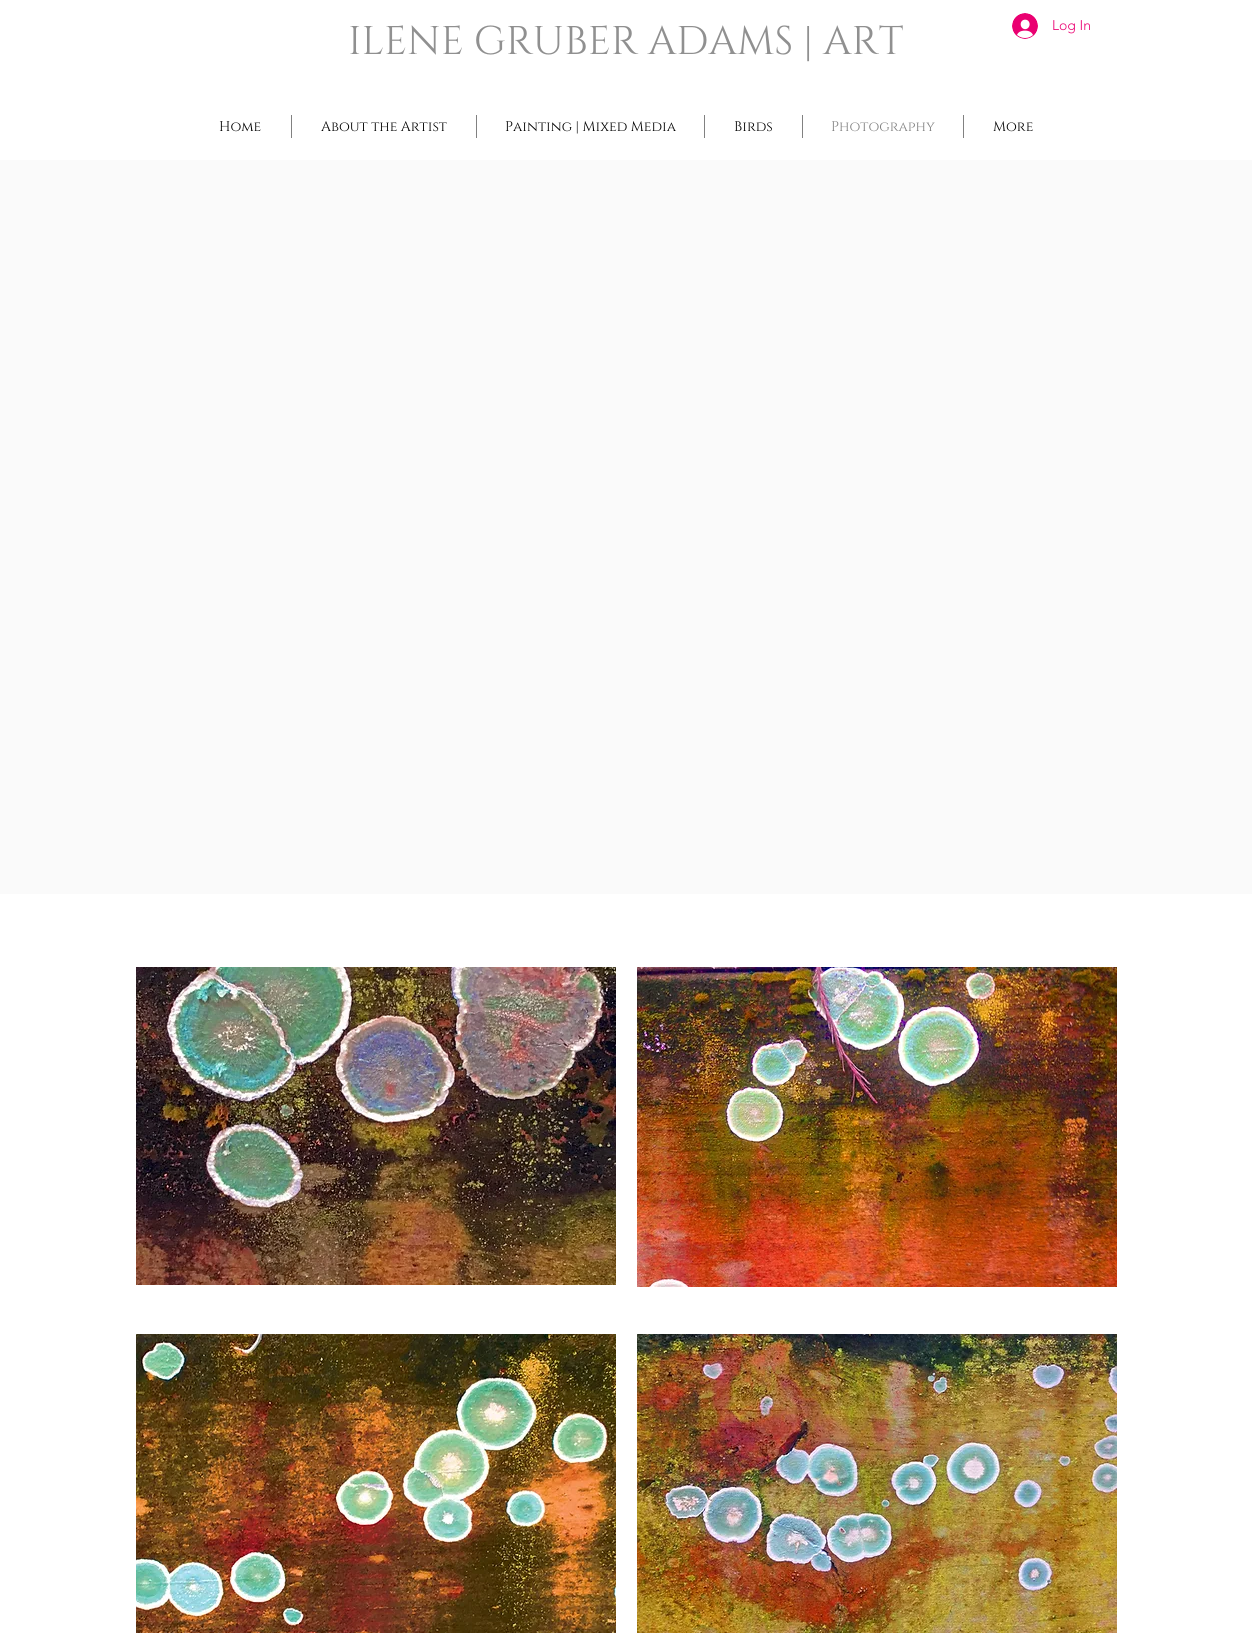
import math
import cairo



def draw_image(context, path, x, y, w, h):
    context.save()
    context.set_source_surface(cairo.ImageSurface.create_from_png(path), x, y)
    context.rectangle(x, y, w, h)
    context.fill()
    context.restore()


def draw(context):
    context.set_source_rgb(1, 1, 1)
    context.paint()
    draw_image(context, "images/1.png", 1012, 13, 26, 26)
    context.set_source_rgb(129 / 255, 129 / 255, 129 / 255)
    context.rectangle(291, 115, 1, 23)
    context.fill()
    context.rectangle(476, 115, 1, 23)
    context.fill()
    context.rectangle(704, 115, 1, 23)
    context.fill()
    context.rectangle(802, 115, 1, 23)
    context.fill()
    context.rectangle(963, 115, 1, 23)
    context.fill()
    context.set_source_rgb(250 / 255, 250 / 255, 250 / 255)
    context.rectangle(0, 160, 1252, 734)
    context.fill()
    draw_image(context, "images/2.png", 136, 967, 480, 318)
    draw_image(context, "images/3.png", 637, 967, 480, 320)
    draw_image(context, "images/4.png", 136, 1334, 480, 299)
    draw_image(context, "images/5.png", 637, 1334, 480, 299)
    context.select_font_face("Cinzel")
    context.set_font_size(40)
    context.set_source_rgb(144 / 255, 144 / 255, 144 / 255)
    context.move_to(348, 54)
    context.show_text("ILENE GRUBER ADAMS | ART")
    context.select_font_face("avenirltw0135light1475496 Light")
    context.set_font_size(14)
    context.set_source_rgb(234 / 255, 0, 113 / 255)
    context.move_to(1052, 30)
    context.show_text("Log In")
    context.select_font_face("Cinzel")
    context.set_source_rgb(0, 0, 0)
    context.move_to(219, 131)
    context.show_text("Home")
    context.move_to(321, 131)
    context.show_text("About the Artist")
    context.move_to(505, 131)
    context.show_text("Painting | Mixed Media")
    context.move_to(734, 131)
    context.show_text("Birds")
    context.set_source_rgb(129 / 255, 129 / 255, 129 / 255)
    context.move_to(831, 131)
    context.show_text("Photography")
    context.set_source_rgb(0, 0, 0)
    context.move_to(993, 131)
    context.show_text("More")


surface = cairo.ImageSurface(cairo.Format.RGB24, 1252, 1633)
context = cairo.Context(surface)
options = cairo.FontOptions()
options.set_hint_metrics(cairo.HintMetrics.OFF)
options.set_hint_style(cairo.HintStyle.NONE)
context.set_font_options(options)
context.set_miter_limit(4)
draw(context)
surface.write_to_png("out.png")
